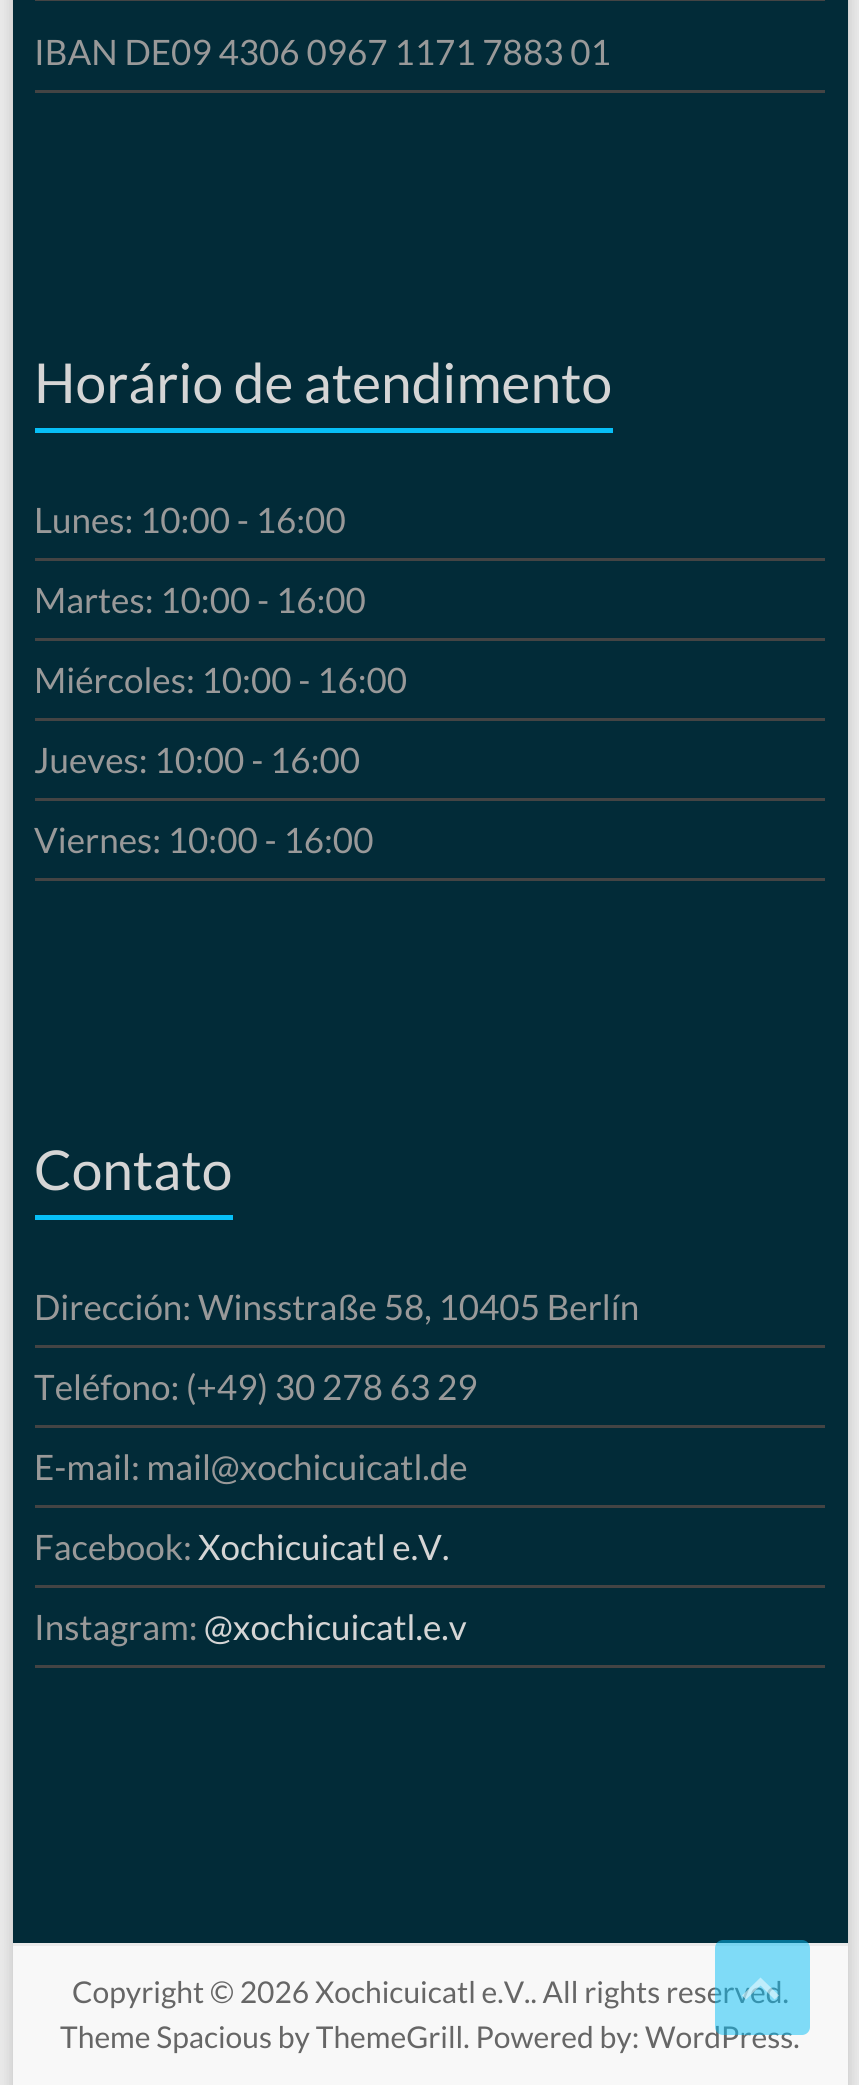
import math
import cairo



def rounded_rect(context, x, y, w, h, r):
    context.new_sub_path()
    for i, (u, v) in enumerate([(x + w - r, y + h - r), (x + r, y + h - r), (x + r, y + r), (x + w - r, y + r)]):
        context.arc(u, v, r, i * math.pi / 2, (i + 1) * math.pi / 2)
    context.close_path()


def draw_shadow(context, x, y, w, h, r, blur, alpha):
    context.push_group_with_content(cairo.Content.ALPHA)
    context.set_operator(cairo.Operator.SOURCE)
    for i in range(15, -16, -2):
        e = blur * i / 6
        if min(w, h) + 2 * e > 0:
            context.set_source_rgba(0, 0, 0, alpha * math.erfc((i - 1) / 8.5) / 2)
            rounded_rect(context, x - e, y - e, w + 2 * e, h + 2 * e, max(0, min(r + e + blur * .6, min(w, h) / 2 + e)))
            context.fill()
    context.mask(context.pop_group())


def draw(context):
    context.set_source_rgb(234 / 255, 234 / 255, 234 / 255)
    context.paint()
    context.set_source_rgb(100 / 255, 100 / 255, 100 / 255)
    draw_shadow(context, 13, -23, 835, 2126, 0, 7.5, 0.3)
    context.set_source_rgb(2 / 255, 43 / 255, 56 / 255)
    context.rectangle(13, 0, 835, 1943)
    context.fill()
    context.set_source_rgb(68 / 255, 68 / 255, 68 / 255)
    context.rectangle(35, 0, 790, 1)
    context.fill()
    context.rectangle(35, 90, 790, 3)
    context.fill()
    context.set_source_rgb(7 / 255, 191 / 255, 247 / 255)
    context.rectangle(35, 428, 578, 5)
    context.fill()
    context.set_source_rgb(68 / 255, 68 / 255, 68 / 255)
    context.rectangle(35, 558, 790, 3)
    context.fill()
    context.rectangle(35, 638, 790, 3)
    context.fill()
    context.rectangle(35, 718, 790, 3)
    context.fill()
    context.rectangle(35, 798, 790, 3)
    context.fill()
    context.rectangle(35, 878, 790, 3)
    context.fill()
    context.set_source_rgb(7 / 255, 191 / 255, 247 / 255)
    context.rectangle(35, 1215, 198, 5)
    context.fill()
    context.set_source_rgb(68 / 255, 68 / 255, 68 / 255)
    context.rectangle(35, 1345, 790, 3)
    context.fill()
    context.rectangle(35, 1425, 790, 3)
    context.fill()
    context.rectangle(35, 1505, 790, 3)
    context.fill()
    context.rectangle(35, 1585, 790, 3)
    context.fill()
    context.rectangle(35, 1665, 790, 3)
    context.fill()
    context.set_source_rgb(248 / 255, 248 / 255, 248 / 255)
    context.rectangle(13, 1946, 835, 139)
    context.fill()
    context.set_source_rgb(234 / 255, 234 / 255, 234 / 255)
    context.rectangle(13, 1943, 835, 3)
    context.fill()
    context.select_font_face("Lato")
    context.set_font_size(35)
    context.set_source_rgb(153 / 255, 153 / 255, 153 / 255)
    context.move_to(34, 65)
    context.show_text("IBAN DE09 4306 0967 1171 7883 01")
    context.set_font_size(55)
    context.set_source_rgb(213 / 255, 213 / 255, 213 / 255)
    context.move_to(34, 403)
    context.show_text("Horário de atendimento")
    context.set_font_size(35)
    context.set_source_rgb(153 / 255, 153 / 255, 153 / 255)
    context.move_to(34, 533)
    context.show_text("Lunes: 10:00 - 16:00")
    context.move_to(34, 613)
    context.show_text("Martes: 10:00 - 16:00")
    context.move_to(34, 693)
    context.show_text("Miércoles: 10:00 - 16:00")
    context.move_to(34, 773)
    context.show_text("Jueves: 10:00 - 16:00")
    context.move_to(34, 853)
    context.show_text("Viernes: 10:00 - 16:00")
    context.set_font_size(55)
    context.set_source_rgb(213 / 255, 213 / 255, 213 / 255)
    context.move_to(34, 1190)
    context.show_text("Contato")
    context.set_font_size(35)
    context.set_source_rgb(153 / 255, 153 / 255, 153 / 255)
    context.move_to(34, 1320)
    context.show_text("Dirección: Winsstraße 58, 10405 Berlín")
    context.move_to(34, 1400)
    context.show_text("Teléfono: (+49) 30 278 63 29")
    context.move_to(34, 1480)
    context.show_text("E-mail: mail@xochicuicatl.de")
    context.move_to(34, 1560)
    context.show_text("Facebook:")
    context.set_source_rgb(213 / 255, 213 / 255, 213 / 255)
    context.move_to(198, 1560)
    context.show_text("Xochicuicatl e.V.")
    context.set_source_rgb(153 / 255, 153 / 255, 153 / 255)
    context.move_to(34, 1640)
    context.show_text("Instagram:")
    context.set_source_rgb(213 / 255, 213 / 255, 213 / 255)
    context.move_to(204, 1640)
    context.show_text("@xochicuicatl.e.v")
    context.set_font_size(30)
    context.set_source_rgb(102 / 255, 102 / 255, 102 / 255)
    context.move_to(72, 2003)
    context.show_text("Copyright © 2026 Xochicuicatl e.V.. All rights reserved.")
    context.move_to(60, 2048)
    context.show_text("Theme Spacious by ThemeGrill. Powered by: WordPress.")
    context.set_source_rgba(7 / 255, 191 / 255, 247 / 255, 0.5)
    rounded_rect(context, 715, 1940, 95, 95, 8)
    context.fill()
    context.set_source_rgba(1, 1, 1, 0.5)
    context.new_path()
    context.move_to(774.5, 1999.5)
    context.line_to(760.5, 1985.5)
    context.line_to(746, 1999.5)
    context.line_to(742, 1995.5)
    context.line_to(760.5, 1977.5)
    context.line_to(779, 1995.5)
    context.close_path()
    context.fill()


surface = cairo.ImageSurface(cairo.Format.RGB24, 859, 2085)
context = cairo.Context(surface)
options = cairo.FontOptions()
options.set_hint_metrics(cairo.HintMetrics.OFF)
options.set_hint_style(cairo.HintStyle.NONE)
context.set_font_options(options)
context.set_miter_limit(4)
draw(context)
surface.write_to_png("out.png")
